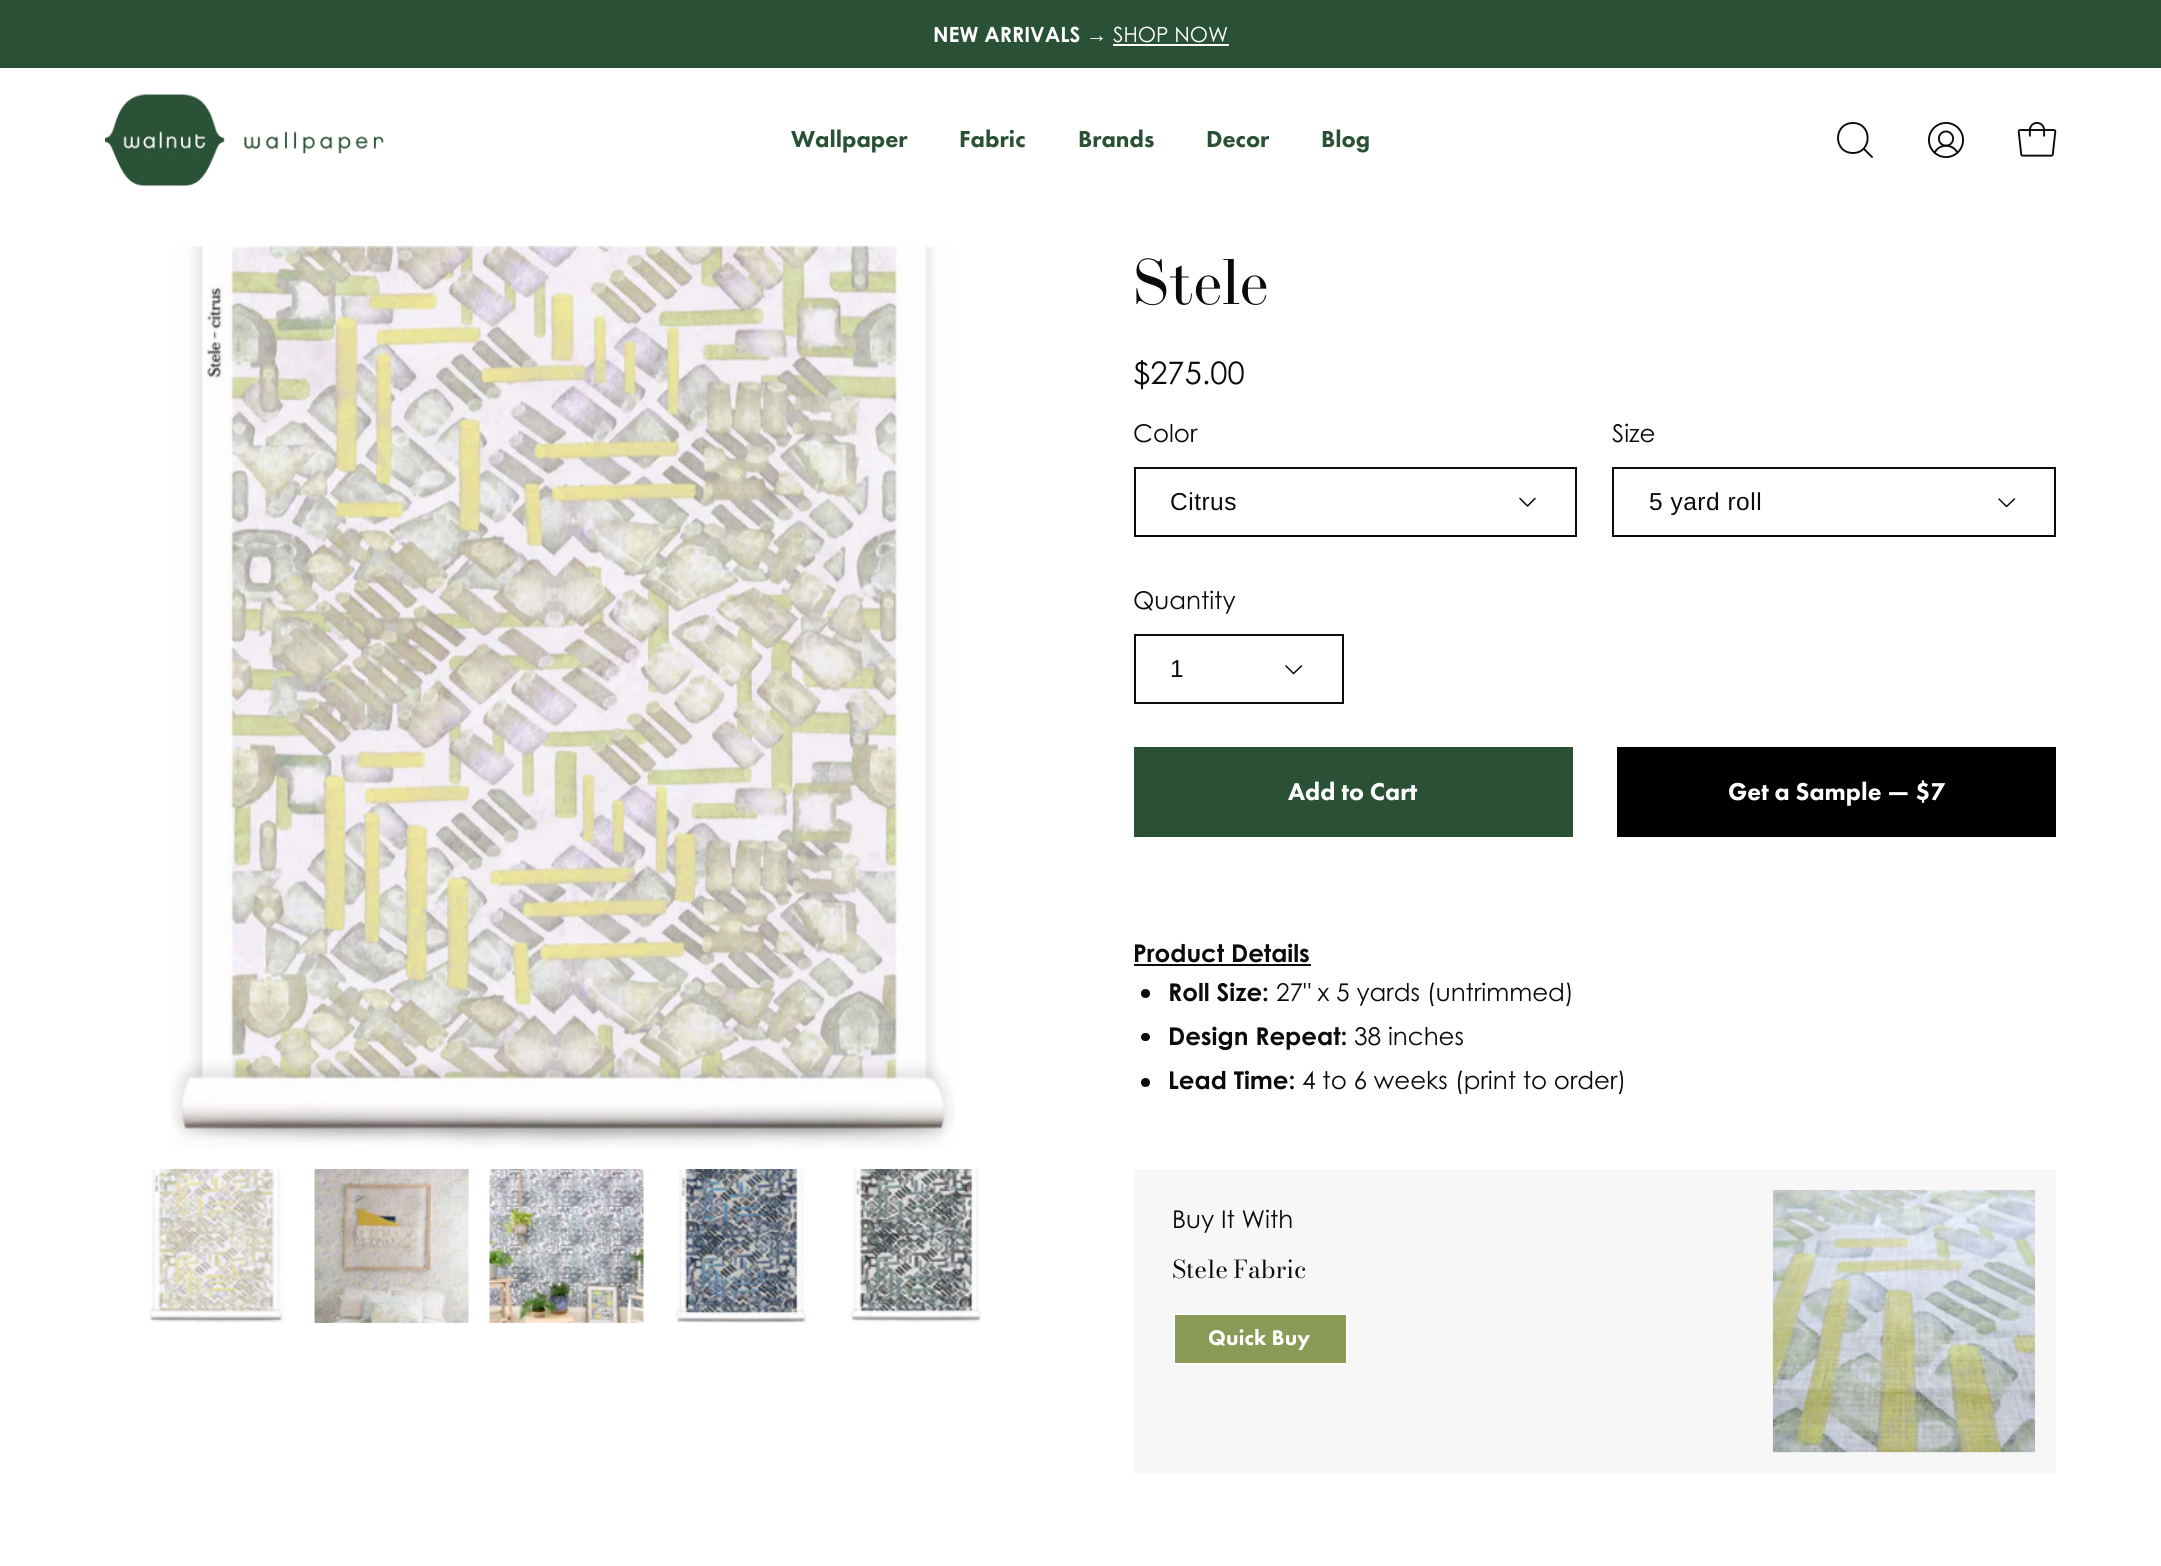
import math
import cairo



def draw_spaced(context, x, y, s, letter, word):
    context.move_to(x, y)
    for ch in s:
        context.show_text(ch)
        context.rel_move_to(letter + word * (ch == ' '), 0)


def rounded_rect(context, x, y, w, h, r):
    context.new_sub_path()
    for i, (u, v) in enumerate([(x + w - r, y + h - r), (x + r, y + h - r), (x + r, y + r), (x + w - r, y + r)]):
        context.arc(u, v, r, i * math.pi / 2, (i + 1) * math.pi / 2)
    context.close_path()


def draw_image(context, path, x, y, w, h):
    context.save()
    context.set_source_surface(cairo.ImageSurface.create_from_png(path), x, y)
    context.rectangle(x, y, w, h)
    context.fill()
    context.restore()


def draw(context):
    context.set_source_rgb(1, 1, 1)
    context.paint()
    context.set_source_rgb(42 / 255, 81 / 255, 53 / 255)
    context.rectangle(0, 0, 2161, 68)
    context.fill()
    context.set_source_rgb(1, 1, 1)
    context.rectangle(1113, 44, 116, 2)
    context.fill()
    draw_image(context, "images/1.png", 105, 93, 279, 93)
    context.new_path()
    context.move_to(1853, 153)
    context.curve_to(1872.5, 153, 1872.5, 123, 1853, 123)
    context.curve_to(1833, 123, 1833, 153, 1853, 153)
    context.close_path()
    context.move_to(1863.5, 148.5)
    context.line_to(1872, 157)
    context.set_source_rgb(11 / 255, 11 / 255, 11 / 255)
    context.set_line_width(1.9)
    context.set_line_cap(cairo.LineCap.ROUND)
    context.set_line_join(cairo.LineJoin.ROUND)
    context.stroke()
    draw_image(context, "images/2.png", 1928, 122, 36, 36)
    draw_image(context, "images/3.png", 2017, 122, 40, 35)
    draw_image(context, "images/4.png", 170, 246, 785, 903)
    draw_image(context, "images/5.png", 149, 1169, 136, 154)
    draw_image(context, "images/6.png", 314, 1169, 155, 154)
    draw_image(context, "images/7.png", 489, 1169, 155, 154)
    draw_image(context, "images/8.png", 675, 1169, 134, 154)
    draw_image(context, "images/9.png", 850, 1169, 132, 154)
    context.rectangle(1135, 468, 441, 68)
    context.set_line_width(2)
    context.set_line_cap(cairo.LineCap.BUTT)
    context.set_line_join(cairo.LineJoin.MITER)
    context.stroke()
    context.new_path()
    context.move_to(1535, 498.5)
    context.line_to(1527.5, 506)
    context.line_to(1520, 498.5)
    context.set_line_width(1.5)
    context.set_line_cap(cairo.LineCap.ROUND)
    context.set_line_join(cairo.LineJoin.ROUND)
    context.stroke()
    context.rectangle(1613, 468, 442, 68)
    context.set_line_width(2)
    context.set_line_cap(cairo.LineCap.BUTT)
    context.set_line_join(cairo.LineJoin.MITER)
    context.stroke()
    context.new_path()
    context.move_to(2014.5, 499)
    context.line_to(2006.5, 506.5)
    context.line_to(1999, 499)
    context.set_line_width(1.5)
    context.set_line_cap(cairo.LineCap.ROUND)
    context.set_line_join(cairo.LineJoin.ROUND)
    context.stroke()
    context.rectangle(1135, 635, 208, 68)
    context.set_line_width(2)
    context.set_line_cap(cairo.LineCap.BUTT)
    context.set_line_join(cairo.LineJoin.MITER)
    context.stroke()
    context.new_path()
    context.move_to(1301.5, 666)
    context.line_to(1293.5, 673.5)
    context.line_to(1286, 666)
    context.set_line_width(1.5)
    context.set_line_cap(cairo.LineCap.ROUND)
    context.set_line_join(cairo.LineJoin.ROUND)
    context.stroke()
    context.set_source_rgb(42 / 255, 81 / 255, 53 / 255)
    context.rectangle(1134, 747, 439, 90)
    context.fill()
    context.set_source_rgb(0, 0, 0)
    context.rectangle(1617, 747, 439, 90)
    context.fill()
    context.set_source_rgb(11 / 255, 11 / 255, 11 / 255)
    context.rectangle(1134, 964, 177, 2)
    context.fill()
    context.arc(1145.5, 993.5, 4.5, 0, 2 * math.pi)
    context.fill()
    rounded_rect(context, 1141, 1033, 9, 8, 4)
    context.fill()
    context.arc(1145.5, 1082.5, 4.5, 0, 2 * math.pi)
    context.fill()
    context.set_source_rgb(247 / 255, 247 / 255, 247 / 255)
    context.rectangle(1134, 1169, 922, 305)
    context.fill()
    context.set_source_rgb(138 / 255, 154 / 255, 87 / 255)
    context.rectangle(1174, 1314, 173, 50)
    context.fill_preserve()
    context.set_source_rgb(1, 1, 1)
    context.set_line_width(2)
    context.set_line_cap(cairo.LineCap.BUTT)
    context.set_line_join(cairo.LineJoin.MITER)
    context.stroke()
    context.rectangle(1773, 1452, 262, 1)
    context.fill()
    draw_image(context, "images/10.png", 1772, 1190, 264, 263)
    context.select_font_face("Century Gothic", cairo.FontSlant.NORMAL, cairo.FontWeight.BOLD)
    context.set_font_size(21)
    context.move_to(933, 42)
    context.show_text("NEW ARRIVALS")
    context.select_font_face("Liberation Sans")
    context.move_to(1086, 42)
    context.show_text("→")
    context.select_font_face("Century Gothic")
    context.move_to(1113, 42)
    context.show_text("SHOP NOW")
    context.select_font_face("Futura PT Black")
    context.set_font_size(24)
    context.set_source_rgb(42 / 255, 81 / 255, 53 / 255)
    context.move_to(791, 147)
    context.show_text("Wallpaper")
    context.move_to(959, 147)
    context.show_text("Fabric")
    context.move_to(1078, 147)
    context.show_text("Brands")
    context.move_to(1206, 147)
    context.show_text("Decor")
    context.move_to(1321, 147)
    context.show_text("Blog")
    context.select_font_face("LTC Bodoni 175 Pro")
    context.set_font_size(64)
    context.set_source_rgb(11 / 255, 11 / 255, 11 / 255)
    context.move_to(1133, 304)
    context.show_text("Stele")
    context.select_font_face("Century Gothic")
    context.set_font_size(31)
    context.move_to(1133, 384)
    context.show_text("$275.00")
    context.set_font_size(24.5)
    context.move_to(1133, 442)
    context.show_text("Color")
    context.select_font_face("Liberation Sans")
    draw_spaced(context, 1170, 510, "Citrus", 0.5, 0)
    context.select_font_face("Century Gothic")
    context.move_to(1612, 442)
    context.show_text("Size")
    context.select_font_face("Liberation Sans")
    draw_spaced(context, 1649, 510, "5 yard roll", 0.5, 0)
    context.select_font_face("Century Gothic")
    context.move_to(1133, 609)
    context.show_text("Quantity")
    context.select_font_face("Liberation Sans")
    draw_spaced(context, 1170, 677, "1", 0.5, 0)
    context.select_font_face("Futura PT Black")
    context.set_font_size(25.25)
    context.set_source_rgb(1, 1, 1)
    context.move_to(1288, 800)
    context.show_text("Add to Cart")
    context.move_to(1728, 800)
    context.show_text("Get a Sample — $7")
    context.select_font_face("Century Gothic", cairo.FontSlant.NORMAL, cairo.FontWeight.BOLD)
    context.set_font_size(24.5)
    context.set_source_rgb(11 / 255, 11 / 255, 11 / 255)
    context.move_to(1133, 962)
    context.show_text("Product Details")
    context.move_to(1168, 1001)
    context.show_text("Roll Size:")
    context.select_font_face("Century Gothic")
    context.move_to(1276, 1001)
    context.show_text("27\" x 5 yards (untrimmed)")
    context.select_font_face("Century Gothic", cairo.FontSlant.NORMAL, cairo.FontWeight.BOLD)
    context.move_to(1168, 1045)
    context.show_text("Design Repeat:")
    context.select_font_face("Century Gothic")
    context.move_to(1354, 1045)
    context.show_text("38 inches")
    context.select_font_face("Century Gothic", cairo.FontSlant.NORMAL, cairo.FontWeight.BOLD)
    context.move_to(1168, 1089)
    context.show_text("Lead Time:")
    context.select_font_face("Century Gothic")
    context.move_to(1302, 1089)
    context.show_text("4 to 6 weeks (print to order)")
    context.move_to(1172, 1228)
    context.show_text("Buy It With")
    context.select_font_face("Bodoni Moda")
    draw_spaced(context, 1172, 1278, "Stele Fabric", 0, -1)
    context.select_font_face("Futura PT Black")
    context.set_font_size(22)
    context.set_source_rgb(1, 1, 1)
    context.move_to(1208, 1345)
    context.show_text("Quick Buy")


surface = cairo.ImageSurface(cairo.Format.RGB24, 2161, 1566)
context = cairo.Context(surface)
options = cairo.FontOptions()
options.set_hint_metrics(cairo.HintMetrics.OFF)
options.set_hint_style(cairo.HintStyle.NONE)
context.set_font_options(options)
context.set_miter_limit(4)
draw(context)
surface.write_to_png("out.png")
